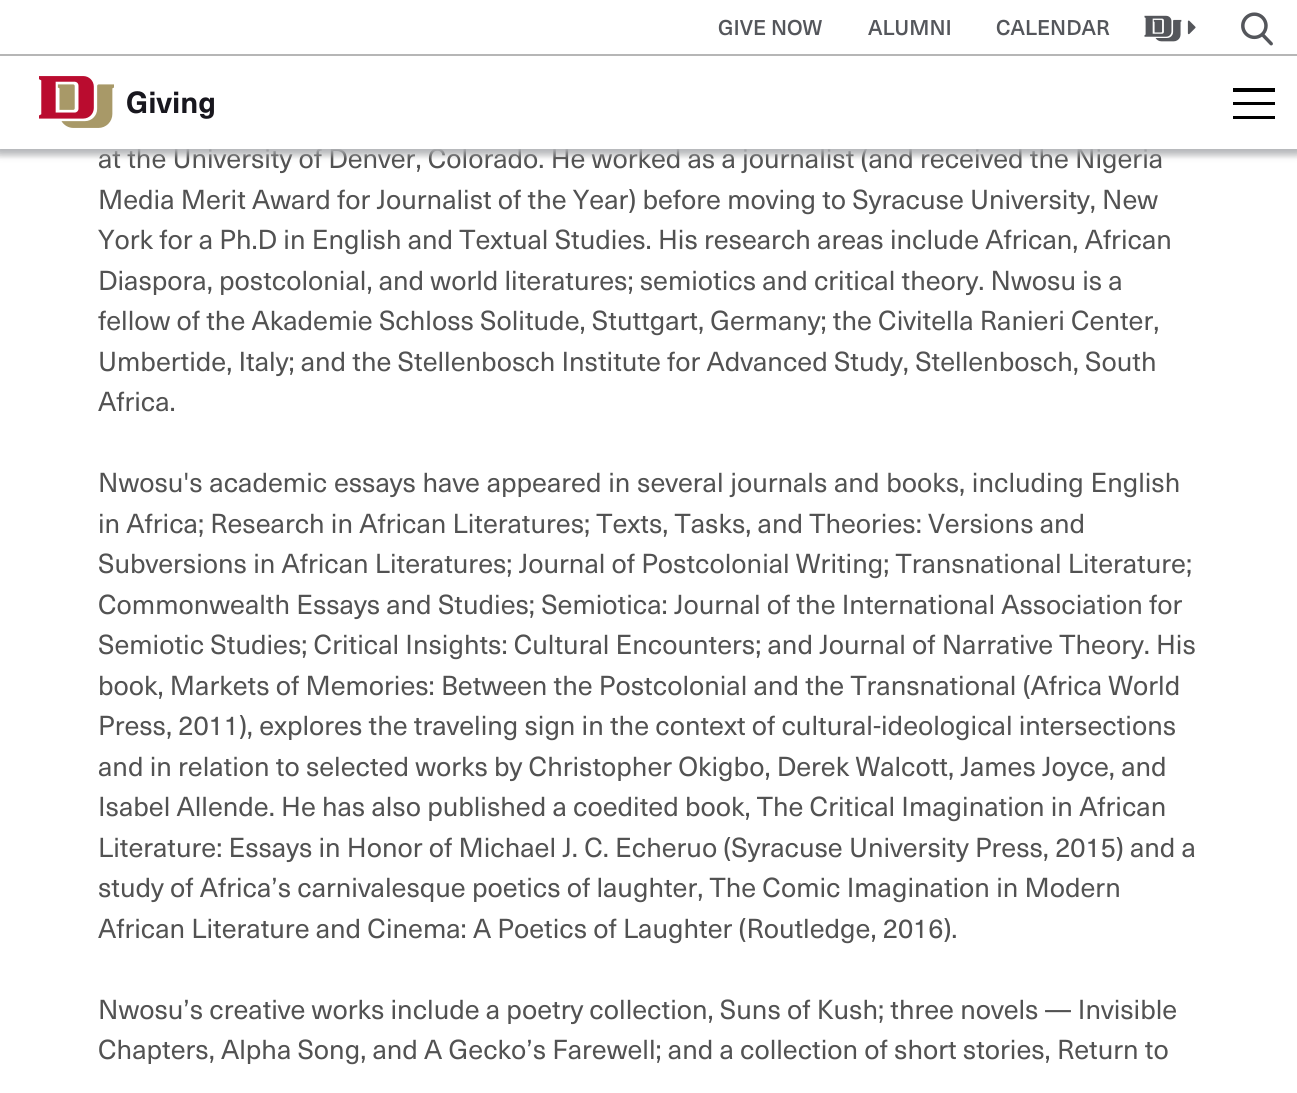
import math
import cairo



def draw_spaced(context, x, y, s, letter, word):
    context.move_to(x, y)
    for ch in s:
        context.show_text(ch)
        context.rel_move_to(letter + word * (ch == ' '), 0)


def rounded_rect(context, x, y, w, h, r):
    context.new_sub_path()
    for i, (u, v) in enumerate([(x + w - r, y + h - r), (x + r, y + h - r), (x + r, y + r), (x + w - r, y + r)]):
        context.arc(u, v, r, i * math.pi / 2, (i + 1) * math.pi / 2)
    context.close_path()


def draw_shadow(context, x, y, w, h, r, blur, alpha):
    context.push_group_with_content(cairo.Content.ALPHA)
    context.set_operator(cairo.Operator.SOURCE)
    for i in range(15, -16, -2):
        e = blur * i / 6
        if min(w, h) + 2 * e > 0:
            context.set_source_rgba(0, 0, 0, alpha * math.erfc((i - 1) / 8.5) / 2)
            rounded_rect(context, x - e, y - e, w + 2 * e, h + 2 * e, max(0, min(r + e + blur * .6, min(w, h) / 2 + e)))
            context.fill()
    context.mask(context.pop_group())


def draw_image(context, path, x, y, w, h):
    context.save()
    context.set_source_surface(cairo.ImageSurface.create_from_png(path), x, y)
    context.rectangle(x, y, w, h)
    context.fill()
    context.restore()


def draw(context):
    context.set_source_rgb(1, 1, 1)
    context.paint()
    context.set_source_rgb(0, 0, 0)
    draw_shadow(context, 0, 3, 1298, 149, 0, 5, 0.3)
    context.set_source_rgb(1, 1, 1)
    context.rectangle(0, 0, 1297, 54)
    context.fill()
    context.set_source_rgb(182 / 255, 182 / 255, 182 / 255)
    context.rectangle(0, 54, 1297, 2)
    context.fill()
    draw_image(context, "images/1.png", 1144, 15, 38, 27)
    draw_image(context, "images/2.png", 1187, 20, 9, 15)
    draw_image(context, "images/3.png", 1241, 12, 32, 34)
    context.select_font_face("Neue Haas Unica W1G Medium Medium")
    context.set_font_size(21)
    context.set_source_rgb(84 / 255, 86 / 255, 91 / 255)
    context.move_to(718, 35)
    context.show_text("GIVE NOW")
    context.move_to(868, 35)
    context.show_text("ALUMNI")
    context.move_to(996, 35)
    context.show_text("CALENDAR")
    context.select_font_face("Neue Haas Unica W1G")
    context.set_font_size(27)
    context.set_source_rgb(82 / 255, 82 / 255, 82 / 255)
    context.move_to(98, 168)
    context.show_text("at the University of Denver, Colorado. He worked as a journalist (and received the Nigeria")
    context.set_source_rgb(1, 1, 1)
    context.rectangle(0, 56, 1297, 93)
    context.fill()
    context.select_font_face("Neue Haas Unica W1G", cairo.FontSlant.NORMAL, cairo.FontWeight.BOLD)
    context.set_font_size(30)
    context.set_source_rgb(24 / 255, 23 / 255, 30 / 255)
    context.move_to(126, 113)
    context.show_text("Giving")
    draw_image(context, "images/4.png", 39, 76, 75, 52)
    context.set_source_rgb(0, 0, 0)
    context.new_path()
    context.move_to(1233, 88)
    context.line_to(1275, 88)
    context.line_to(1275, 92)
    context.line_to(1233, 92)
    context.close_path()
    context.move_to(1233, 102)
    context.line_to(1275, 102)
    context.line_to(1275, 105)
    context.line_to(1233, 105)
    context.close_path()
    context.move_to(1233, 116)
    context.line_to(1275, 116)
    context.line_to(1275, 119)
    context.line_to(1233, 119)
    context.close_path()
    context.fill()
    gradient = cairo.LinearGradient(649, 148, 649, 170)
    gradient.add_color_stop_rgba(0, 181 / 255, 183 / 255, 186 / 255, 1)
    gradient.add_color_stop_rgba(0.5, 181 / 255, 183 / 255, 186 / 255, 0)
    context.set_source(gradient)
    context.rectangle(0, 149, 1297, 10)
    context.fill()
    context.select_font_face("Neue Haas Unica W1G")
    context.set_font_size(27)
    context.set_source_rgb(82 / 255, 82 / 255, 82 / 255)
    context.move_to(98, 209)
    context.show_text("Media Merit Award for Journalist of the Year) before moving to Syracuse University, New")
    context.move_to(98, 249)
    context.show_text("York for a Ph.D in English and Textual Studies. His research areas include African, African")
    context.move_to(98, 290)
    context.show_text("Diaspora, postcolonial, and world literatures; semiotics and critical theory. Nwosu is a")
    context.move_to(98, 330)
    context.show_text("fellow of the Akademie Schloss Solitude, Stuttgart, Germany; the Civitella Ranieri Center,")
    context.move_to(98, 371)
    context.show_text("Umbertide, Italy; and the Stellenbosch Institute for Advanced Study, Stellenbosch, South")
    context.move_to(98, 411)
    context.show_text("Africa.")
    draw_spaced(context, 98, 492, "Nwosu's academic essays have appeared in several journals and books, including English", 0, 0.5)
    context.move_to(98, 533)
    context.show_text("in Africa; Research in African Literatures; Texts, Tasks, and Theories: Versions and")
    context.move_to(98, 573)
    context.show_text("Subversions in African Literatures; Journal of Postcolonial Writing; Transnational Literature;")
    context.move_to(98, 614)
    context.show_text("Commonwealth Essays and Studies; Semiotica: Journal of the International Association for")
    context.move_to(98, 654)
    context.show_text("Semiotic Studies; Critical Insights: Cultural Encounters; and Journal of Narrative Theory. His")
    context.move_to(98, 695)
    context.show_text("book, Markets of Memories: Between the Postcolonial and the Transnational (Africa World")
    context.move_to(98, 735)
    context.show_text("Press, 2011), explores the traveling sign in the context of cultural-ideological intersections")
    context.move_to(98, 776)
    context.show_text("and in relation to selected works by Christopher Okigbo, Derek Walcott, James Joyce, and")
    context.move_to(98, 816)
    context.show_text("Isabel Allende. He has also published a coedited book, The Critical Imagination in African")
    context.move_to(98, 857)
    context.show_text("Literature: Essays in Honor of Michael J. C. Echeruo (Syracuse University Press, 2015) and a")
    context.move_to(98, 897)
    context.show_text("study of Africa’s carnivalesque poetics of laughter, The Comic Imagination in Modern")
    context.move_to(98, 938)
    context.show_text("African Literature and Cinema: A Poetics of Laughter (Routledge, 2016).")
    context.move_to(98, 1019)
    context.show_text("Nwosu’s creative works include a poetry collection, Suns of Kush; three novels — Invisible")
    context.move_to(98, 1059)
    context.show_text("Chapters, Alpha Song, and A Gecko’s Farewell; and a collection of short stories, Return to")


surface = cairo.ImageSurface(cairo.Format.RGB24, 1297, 1093)
context = cairo.Context(surface)
options = cairo.FontOptions()
options.set_hint_metrics(cairo.HintMetrics.OFF)
options.set_hint_style(cairo.HintStyle.NONE)
context.set_font_options(options)
context.set_miter_limit(4)
draw(context)
surface.write_to_png("out.png")
